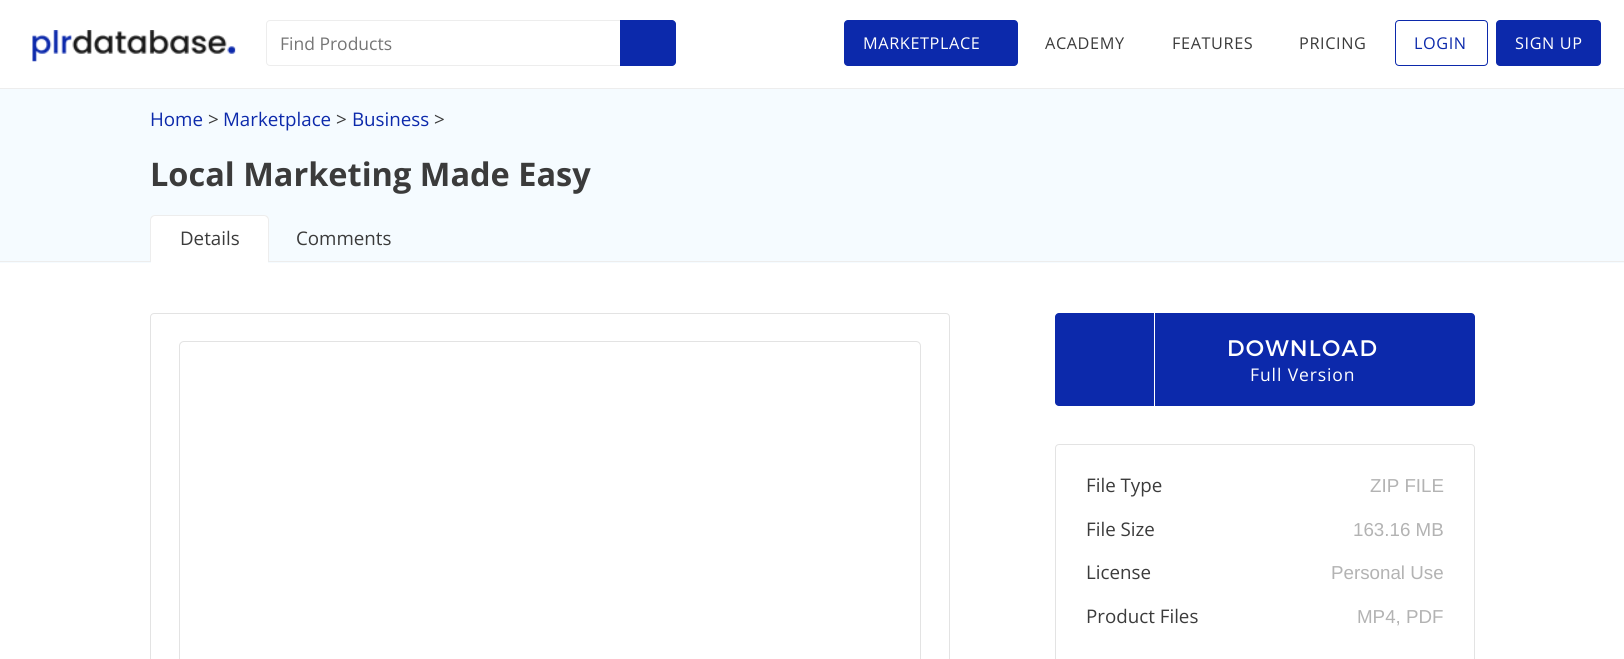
import math
import cairo



def draw_spaced(context, x, y, s, letter, word):
    context.move_to(x, y)
    for ch in s:
        context.show_text(ch)
        context.rel_move_to(letter + word * (ch == ' '), 0)


def rounded_rect(context, x, y, w, h, r):
    context.new_sub_path()
    for i, (u, v) in enumerate([(x + w - r, y + h - r), (x + r, y + h - r), (x + r, y + r), (x + w - r, y + r)]):
        context.arc(u, v, r, i * math.pi / 2, (i + 1) * math.pi / 2)
    context.close_path()


def draw_image(context, path, x, y, w, h):
    context.save()
    context.set_source_surface(cairo.ImageSurface.create_from_png(path), x, y)
    context.rectangle(x, y, w, h)
    context.fill()
    context.restore()


def draw(context):
    context.set_source_rgb(1, 1, 1)
    context.paint()
    draw_image(context, "images/1.png", 32, 30, 204, 32)
    rounded_rect(context, 266.5, 20.5, 409, 45, 3.5)
    context.set_source_rgb(237 / 255, 237 / 255, 237 / 255)
    context.set_line_width(1)
    context.stroke()
    context.set_source_rgb(12 / 255, 41 / 255, 171 / 255)
    context.new_path()
    context.move_to(620, 20)
    context.line_to(672, 20)
    context.curve_to(674, 20, 676, 22, 676, 24)
    context.line_to(676, 62)
    context.curve_to(676, 64, 674, 66, 672, 66)
    context.line_to(620, 66)
    context.close_path()
    context.fill()
    rounded_rect(context, 844, 20, 174, 46, 4)
    context.fill()
    rounded_rect(context, 1395.5, 20.5, 92, 45, 3.5)
    context.stroke()
    rounded_rect(context, 1496, 20, 105, 46, 4)
    context.fill()
    context.set_source_rgb(245 / 255, 251 / 255, 1)
    context.rectangle(0, 89, 1624, 174)
    context.fill()
    context.set_source_rgb(237 / 255, 237 / 255, 237 / 255)
    context.rectangle(0, 88, 1624, 1)
    context.fill()
    context.rectangle(0, 261, 1624, 1)
    context.fill()
    context.set_source_rgb(1, 1, 1)
    context.new_path()
    context.move_to(155, 215)
    context.line_to(264, 215)
    context.curve_to(267, 215, 269, 217, 269, 220)
    context.line_to(269, 261)
    context.line_to(150, 261)
    context.line_to(150, 220)
    context.curve_to(150, 217, 152, 215, 155, 215)
    context.close_path()
    context.fill()
    context.set_source_rgb(237 / 255, 237 / 255, 237 / 255)
    context.set_fill_rule(cairo.FillRule.EVEN_ODD)
    context.new_path()
    context.move_to(155, 215)
    context.line_to(264, 215)
    context.curve_to(267, 215, 269, 217, 269, 220)
    context.line_to(269, 261)
    context.line_to(150, 261)
    context.line_to(150, 220)
    context.curve_to(150, 217, 152, 215, 155, 215)
    context.close_path()
    context.move_to(155, 216)
    context.line_to(264, 216)
    context.curve_to(266, 216, 268, 218, 268, 220)
    context.line_to(268, 261)
    context.line_to(151, 261)
    context.line_to(151, 220)
    context.curve_to(151, 218, 153, 216, 155, 216)
    context.close_path()
    context.fill()
    context.set_source_rgb(1, 1, 1)
    context.rectangle(151, 261, 117, 2)
    context.fill()
    rounded_rect(context, 150.5, 313.5, 799, 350, 3.5)
    context.set_source_rgb(227 / 255, 227 / 255, 227 / 255)
    context.stroke()
    rounded_rect(context, 179.5, 341.5, 741, 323, 4.5)
    context.stroke()
    context.set_source_rgb(12 / 255, 41 / 255, 171 / 255)
    rounded_rect(context, 1055, 313, 420, 93, 4)
    context.fill()
    context.set_source_rgb(1, 1, 1)
    context.rectangle(1154, 313, 1, 93)
    context.fill()
    rounded_rect(context, 1055.5, 444.5, 419, 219, 3.5)
    context.set_source_rgb(227 / 255, 227 / 255, 227 / 255)
    context.stroke()
    context.select_font_face("Open Sans")
    context.set_font_size(17.5)
    context.set_source_rgb(117 / 255, 117 / 255, 117 / 255)
    context.move_to(280, 50)
    context.show_text("Find Products")
    context.select_font_face("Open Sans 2")
    context.set_font_size(16.25)
    context.set_source_rgb(1, 1, 1)
    draw_spaced(context, 863, 49, "MARKETPLACE", 0.6, 0)
    context.set_source_rgb(59 / 255, 59 / 255, 59 / 255)
    draw_spaced(context, 1045, 49, "ACADEMY", 0.6, 0)
    draw_spaced(context, 1172, 49, "FEATURES", 0.6, 0)
    draw_spaced(context, 1299, 49, "PRICING", 0.6, 0)
    context.set_source_rgb(12 / 255, 41 / 255, 171 / 255)
    draw_spaced(context, 1414, 49, "LOGIN", 0.6, 0)
    context.set_source_rgb(1, 1, 1)
    draw_spaced(context, 1515, 49, "SIGN UP", 0.6, 0)
    context.select_font_face("Open Sans")
    context.set_font_size(18.75)
    context.set_source_rgb(12 / 255, 41 / 255, 171 / 255)
    context.move_to(150, 126)
    context.show_text("Home")
    context.set_source_rgb(59 / 255, 59 / 255, 59 / 255)
    context.move_to(208, 126)
    context.show_text(">")
    context.set_source_rgb(12 / 255, 41 / 255, 171 / 255)
    context.move_to(223, 126)
    context.show_text("Marketplace")
    context.set_source_rgb(59 / 255, 59 / 255, 59 / 255)
    context.move_to(336, 126)
    context.show_text(">")
    context.set_source_rgb(12 / 255, 41 / 255, 171 / 255)
    context.move_to(352, 126)
    context.show_text("Business")
    context.set_source_rgb(59 / 255, 59 / 255, 59 / 255)
    context.move_to(434, 126)
    context.show_text(">")
    context.select_font_face("Open Sans", cairo.FontSlant.NORMAL, cairo.FontWeight.BOLD)
    context.set_font_size(32.5)
    context.move_to(150, 186)
    context.show_text("Local Marketing Made Easy")
    context.select_font_face("Open Sans")
    context.set_font_size(18.75)
    context.move_to(180, 245)
    context.show_text("Details")
    context.move_to(296, 245)
    context.show_text("Comments")
    context.select_font_face("Montserrat")
    context.set_font_size(22.5)
    context.set_source_rgb(1, 1, 1)
    draw_spaced(context, 1227, 356, "DOWNLOAD", 1.25, 0)
    context.select_font_face("Open Sans")
    context.set_font_size(17.5)
    draw_spaced(context, 1250, 381, "Full Version", 0.9, 0)
    context.set_font_size(18.75)
    context.set_source_rgb(59 / 255, 59 / 255, 59 / 255)
    context.move_to(1086, 492)
    context.show_text("File Type")
    context.select_font_face("Liberation Sans")
    context.set_source_rgb(179 / 255, 179 / 255, 179 / 255)
    context.move_to(1370, 492)
    context.show_text("ZIP FILE")
    context.select_font_face("Open Sans")
    context.set_source_rgb(59 / 255, 59 / 255, 59 / 255)
    context.move_to(1086, 536)
    context.show_text("File Size")
    context.select_font_face("Liberation Sans")
    context.set_source_rgb(179 / 255, 179 / 255, 179 / 255)
    context.move_to(1353, 536)
    context.show_text("163.16 MB")
    context.select_font_face("Open Sans")
    context.set_source_rgb(59 / 255, 59 / 255, 59 / 255)
    context.move_to(1086, 579)
    context.show_text("License")
    context.select_font_face("Liberation Sans")
    context.set_source_rgb(179 / 255, 179 / 255, 179 / 255)
    context.move_to(1331, 579)
    context.show_text("Personal Use")
    context.select_font_face("Open Sans")
    context.set_source_rgb(59 / 255, 59 / 255, 59 / 255)
    context.move_to(1086, 623)
    context.show_text("Product Files")
    context.select_font_face("Liberation Sans")
    context.set_source_rgb(179 / 255, 179 / 255, 179 / 255)
    context.move_to(1357, 623)
    context.show_text("MP4, PDF")


surface = cairo.ImageSurface(cairo.Format.RGB24, 1624, 659)
context = cairo.Context(surface)
options = cairo.FontOptions()
options.set_hint_metrics(cairo.HintMetrics.OFF)
options.set_hint_style(cairo.HintStyle.NONE)
context.set_font_options(options)
context.set_miter_limit(4)
draw(context)
surface.write_to_png("out.png")
